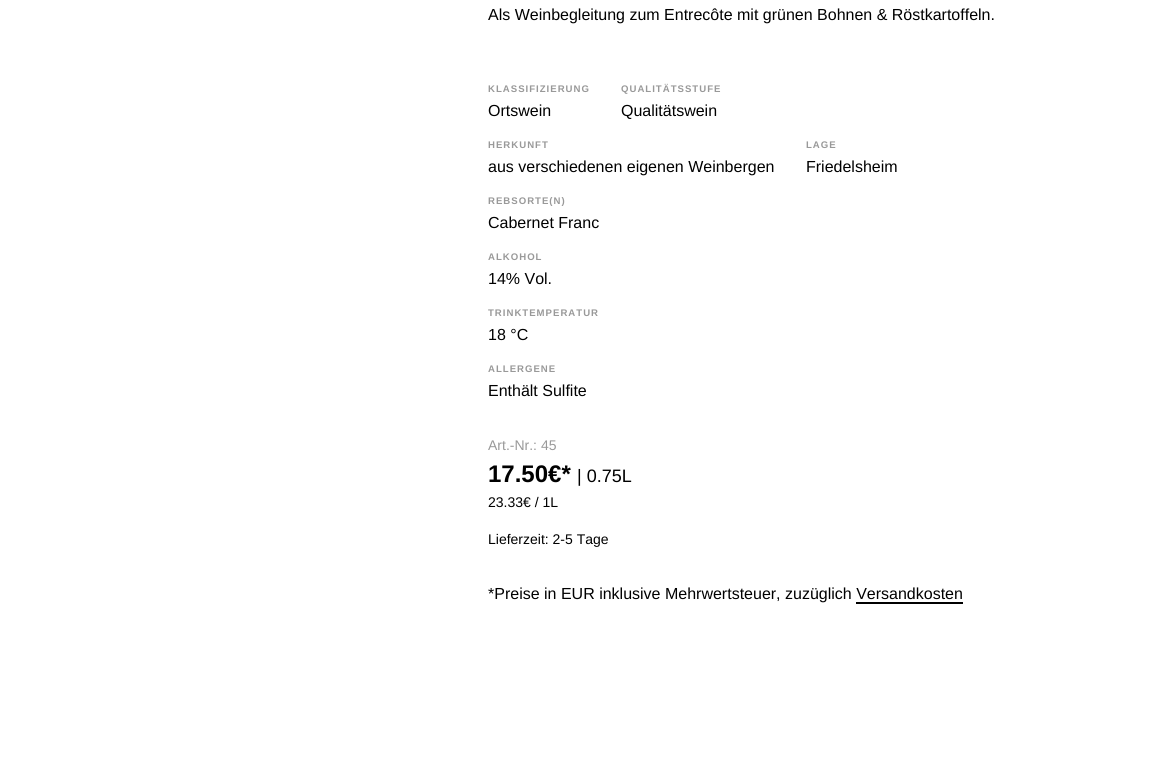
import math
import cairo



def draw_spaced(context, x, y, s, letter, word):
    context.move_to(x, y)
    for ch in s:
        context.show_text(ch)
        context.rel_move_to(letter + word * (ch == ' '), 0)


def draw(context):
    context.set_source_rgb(1, 1, 1)
    context.paint()
    context.set_source_rgb(0, 0, 0)
    context.rectangle(856, 602, 107, 2)
    context.fill()
    context.select_font_face("Liberation Sans")
    context.set_font_size(16)
    context.move_to(488, 20)
    context.show_text("Als Weinbegleitung zum Entrecôte mit grünen Bohnen & Röstkartoffeln.")
    context.select_font_face("Liberation Sans", cairo.FontSlant.NORMAL, cairo.FontWeight.BOLD)
    context.set_font_size(9.6)
    context.set_source_rgb(153 / 255, 153 / 255, 153 / 255)
    draw_spaced(context, 488, 92, "KLASSIFIZIERUNG", 1, 0)
    context.select_font_face("Liberation Sans")
    context.set_font_size(16)
    context.set_source_rgb(0, 0, 0)
    context.move_to(488, 116)
    context.show_text("Ortswein")
    context.select_font_face("Liberation Sans", cairo.FontSlant.NORMAL, cairo.FontWeight.BOLD)
    context.set_font_size(9.6)
    context.set_source_rgb(153 / 255, 153 / 255, 153 / 255)
    draw_spaced(context, 621, 92, "QUALITÄTSSTUFE", 1, 0)
    context.select_font_face("Liberation Sans")
    context.set_font_size(16)
    context.set_source_rgb(0, 0, 0)
    context.move_to(621, 116)
    context.show_text("Qualitätswein")
    context.select_font_face("Liberation Sans", cairo.FontSlant.NORMAL, cairo.FontWeight.BOLD)
    context.set_font_size(9.6)
    context.set_source_rgb(153 / 255, 153 / 255, 153 / 255)
    draw_spaced(context, 488, 148, "HERKUNFT", 1, 0)
    context.select_font_face("Liberation Sans")
    context.set_font_size(16)
    context.set_source_rgb(0, 0, 0)
    context.move_to(488, 172)
    context.show_text("aus verschiedenen eigenen Weinbergen")
    context.select_font_face("Liberation Sans", cairo.FontSlant.NORMAL, cairo.FontWeight.BOLD)
    context.set_font_size(9.6)
    context.set_source_rgb(153 / 255, 153 / 255, 153 / 255)
    draw_spaced(context, 806, 148, "LAGE", 1, 0)
    context.select_font_face("Liberation Sans")
    context.set_font_size(16)
    context.set_source_rgb(0, 0, 0)
    context.move_to(806, 172)
    context.show_text("Friedelsheim")
    context.select_font_face("Liberation Sans", cairo.FontSlant.NORMAL, cairo.FontWeight.BOLD)
    context.set_font_size(9.6)
    context.set_source_rgb(153 / 255, 153 / 255, 153 / 255)
    draw_spaced(context, 488, 204, "REBSORTE(N)", 1, 0)
    context.select_font_face("Liberation Sans")
    context.set_font_size(16)
    context.set_source_rgb(0, 0, 0)
    context.move_to(488, 228)
    context.show_text("Cabernet Franc")
    context.select_font_face("Liberation Sans", cairo.FontSlant.NORMAL, cairo.FontWeight.BOLD)
    context.set_font_size(9.6)
    context.set_source_rgb(153 / 255, 153 / 255, 153 / 255)
    draw_spaced(context, 488, 260, "ALKOHOL", 1, 0)
    context.select_font_face("Liberation Sans")
    context.set_font_size(16)
    context.set_source_rgb(0, 0, 0)
    context.move_to(488, 284)
    context.show_text("14% Vol.")
    context.select_font_face("Liberation Sans", cairo.FontSlant.NORMAL, cairo.FontWeight.BOLD)
    context.set_font_size(9.6)
    context.set_source_rgb(153 / 255, 153 / 255, 153 / 255)
    draw_spaced(context, 488, 316, "TRINKTEMPERATUR", 1, 0)
    context.select_font_face("Liberation Sans")
    context.set_font_size(16)
    context.set_source_rgb(0, 0, 0)
    context.move_to(488, 340)
    context.show_text("18 °C")
    context.select_font_face("Liberation Sans", cairo.FontSlant.NORMAL, cairo.FontWeight.BOLD)
    context.set_font_size(9.6)
    context.set_source_rgb(153 / 255, 153 / 255, 153 / 255)
    draw_spaced(context, 488, 372, "ALLERGENE", 1, 0)
    context.select_font_face("Liberation Sans")
    context.set_font_size(16)
    context.set_source_rgb(0, 0, 0)
    context.move_to(488, 396)
    context.show_text("Enthält Sulfite")
    context.set_font_size(14)
    context.set_source_rgb(153 / 255, 153 / 255, 153 / 255)
    context.move_to(488, 450)
    context.show_text("Art.-Nr.: 45")
    context.select_font_face("Liberation Sans", cairo.FontSlant.NORMAL, cairo.FontWeight.BOLD)
    context.set_font_size(24)
    context.set_source_rgb(0, 0, 0)
    context.move_to(488, 482)
    context.show_text("17.50€*")
    context.select_font_face("Liberation Sans")
    context.set_font_size(18)
    context.move_to(577, 482)
    context.show_text("| 0.75L")
    context.set_font_size(14)
    context.move_to(488, 507)
    context.show_text("23.33€ / 1L")
    context.move_to(488, 544)
    context.show_text("Lieferzeit: 2-5 Tage")
    context.set_font_size(16)
    context.move_to(488, 599)
    context.show_text("*Preise in EUR inklusive Mehrwertsteuer, zuzüglich Versandkosten")


surface = cairo.ImageSurface(cairo.Format.RGB24, 1160, 783)
context = cairo.Context(surface)
options = cairo.FontOptions()
options.set_hint_metrics(cairo.HintMetrics.OFF)
options.set_hint_style(cairo.HintStyle.NONE)
context.set_font_options(options)
context.set_miter_limit(4)
draw(context)
surface.write_to_png("out.png")
